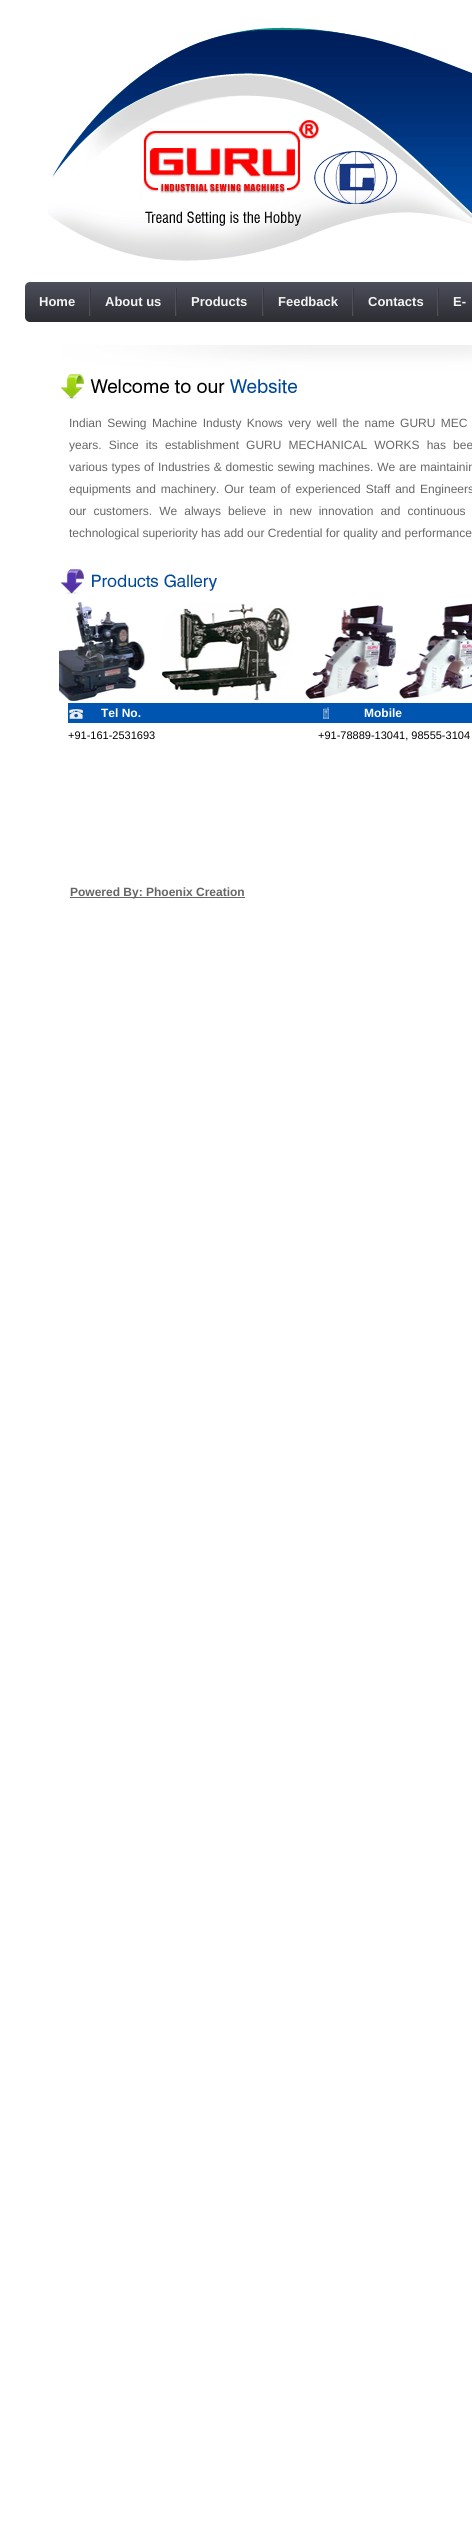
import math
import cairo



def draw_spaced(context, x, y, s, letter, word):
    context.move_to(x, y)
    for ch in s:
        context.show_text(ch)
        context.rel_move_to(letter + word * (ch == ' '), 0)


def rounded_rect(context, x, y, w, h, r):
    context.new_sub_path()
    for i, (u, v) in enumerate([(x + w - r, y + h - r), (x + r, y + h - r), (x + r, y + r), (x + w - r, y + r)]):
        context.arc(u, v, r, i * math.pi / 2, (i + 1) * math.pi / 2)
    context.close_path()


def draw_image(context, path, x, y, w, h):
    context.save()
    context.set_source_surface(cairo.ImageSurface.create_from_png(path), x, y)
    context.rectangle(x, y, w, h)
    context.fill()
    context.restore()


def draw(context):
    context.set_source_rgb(1, 1, 1)
    context.paint()
    draw_image(context, "images/1.png", 259, 27, 49, 2)
    draw_image(context, "images/2.png", 48, 29, 424, 232)
    gradient = cairo.LinearGradient(275, 282, 275, 322)
    gradient.add_color_stop_rgba(0, 76 / 255, 78 / 255, 90 / 255, 1)
    gradient.add_color_stop_rgba(1, 44 / 255, 45 / 255, 51 / 255, 1)
    context.set_source(gradient)
    rounded_rect(context, 25, 282, 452, 40, 5)
    context.fill()
    context.set_source_rgb(79 / 255, 80 / 255, 88 / 255)
    context.rectangle(89, 288, 1, 28)
    context.fill()
    context.rectangle(175, 288, 1, 28)
    context.fill()
    context.set_source_rgb(57 / 255, 57 / 255, 66 / 255)
    context.rectangle(90, 288, 1, 28)
    context.fill()
    context.set_source_rgb(79 / 255, 80 / 255, 88 / 255)
    context.rectangle(262, 288, 1, 28)
    context.fill()
    context.set_source_rgb(57 / 255, 57 / 255, 66 / 255)
    context.rectangle(176, 288, 1, 28)
    context.fill()
    context.set_source_rgb(79 / 255, 80 / 255, 88 / 255)
    context.rectangle(352, 288, 1, 28)
    context.fill()
    context.set_source_rgb(57 / 255, 57 / 255, 66 / 255)
    context.rectangle(263, 288, 1, 28)
    context.fill()
    context.set_source_rgb(79 / 255, 80 / 255, 88 / 255)
    context.rectangle(437, 288, 1, 28)
    context.fill()
    context.set_source_rgb(57 / 255, 57 / 255, 66 / 255)
    context.rectangle(353, 288, 1, 28)
    context.fill()
    context.rectangle(438, 288, 1, 28)
    context.fill()
    draw_image(context, "images/3.png", 61, 345, 411, 54)
    draw_image(context, "images/4.png", 61, 569, 156, 25)
    draw_image(context, "images/5.png", 59, 602, 413, 100)
    context.set_source_rgb(0, 85 / 255, 177 / 255)
    context.rectangle(68, 703, 250, 20)
    context.fill()
    draw_image(context, "images/6.png", 69, 709, 15, 10)
    context.rectangle(318, 703, 154, 20)
    context.fill()
    draw_image(context, "images/7.png", 323, 707, 6, 12)
    context.set_source_rgb(102 / 255, 102 / 255, 102 / 255)
    context.rectangle(70, 897, 175, 1)
    context.fill()
    context.select_font_face("Liberation Sans", cairo.FontSlant.NORMAL, cairo.FontWeight.BOLD)
    context.set_font_size(13)
    context.set_source_rgb(243 / 255, 243 / 255, 243 / 255)
    context.move_to(39, 306)
    context.show_text("Home")
    context.move_to(105, 306)
    context.show_text("About us")
    context.move_to(191, 306)
    context.show_text("Products")
    context.move_to(278, 306)
    context.show_text("Feedback")
    context.move_to(368, 306)
    context.show_text("Contacts")
    context.move_to(453, 306)
    context.show_text("E-")
    context.select_font_face("Liberation Sans")
    context.set_font_size(12)
    context.set_source_rgb(102 / 255, 102 / 255, 102 / 255)
    draw_spaced(context, 69, 427, "Indian Sewing Machine Industy Knows very well the name GURU MEC", 0, 2.1)
    draw_spaced(context, 69, 449, "years. Since its establishment GURU MECHANICAL WORKS has bee", 0, 3.75)
    draw_spaced(context, 69, 471, "various types of Industries & domestic sewing machines. We are maintainin", 0, 0.5)
    draw_spaced(context, 69, 493, "equipments and machinery. Our team of experienced Staff and Engineers", 0, 1.5)
    draw_spaced(context, 69, 515, "our customers. We always believe in new innovation and continuous", 0, 3.75)
    context.move_to(69, 537)
    context.show_text("technological superiority has add our Credential for quality and performance")
    context.select_font_face("Liberation Sans", cairo.FontSlant.NORMAL, cairo.FontWeight.BOLD)
    context.set_source_rgb(1, 1, 1)
    context.move_to(101, 717)
    context.show_text("Tel No.")
    context.select_font_face("Liberation Sans")
    context.set_font_size(11)
    context.set_source_rgb(0, 0, 0)
    context.move_to(68, 739)
    context.show_text("+91-161-2531693")
    context.select_font_face("Liberation Sans", cairo.FontSlant.NORMAL, cairo.FontWeight.BOLD)
    context.set_font_size(12)
    context.set_source_rgb(1, 1, 1)
    context.move_to(364, 717)
    context.show_text("Mobile")
    context.select_font_face("Liberation Sans")
    context.set_font_size(11)
    context.set_source_rgb(0, 0, 0)
    context.move_to(318, 739)
    context.show_text("+91-78889-13041, 98555-3104")
    context.select_font_face("Liberation Sans", cairo.FontSlant.NORMAL, cairo.FontWeight.BOLD)
    context.set_font_size(12)
    context.set_source_rgb(102 / 255, 102 / 255, 102 / 255)
    context.move_to(70, 896)
    context.show_text("Powered By: Phoenix Creation")


surface = cairo.ImageSurface(cairo.Format.RGB24, 472, 2538)
context = cairo.Context(surface)
options = cairo.FontOptions()
options.set_hint_metrics(cairo.HintMetrics.OFF)
options.set_hint_style(cairo.HintStyle.NONE)
context.set_font_options(options)
context.set_miter_limit(4)
draw(context)
surface.write_to_png("out.png")
